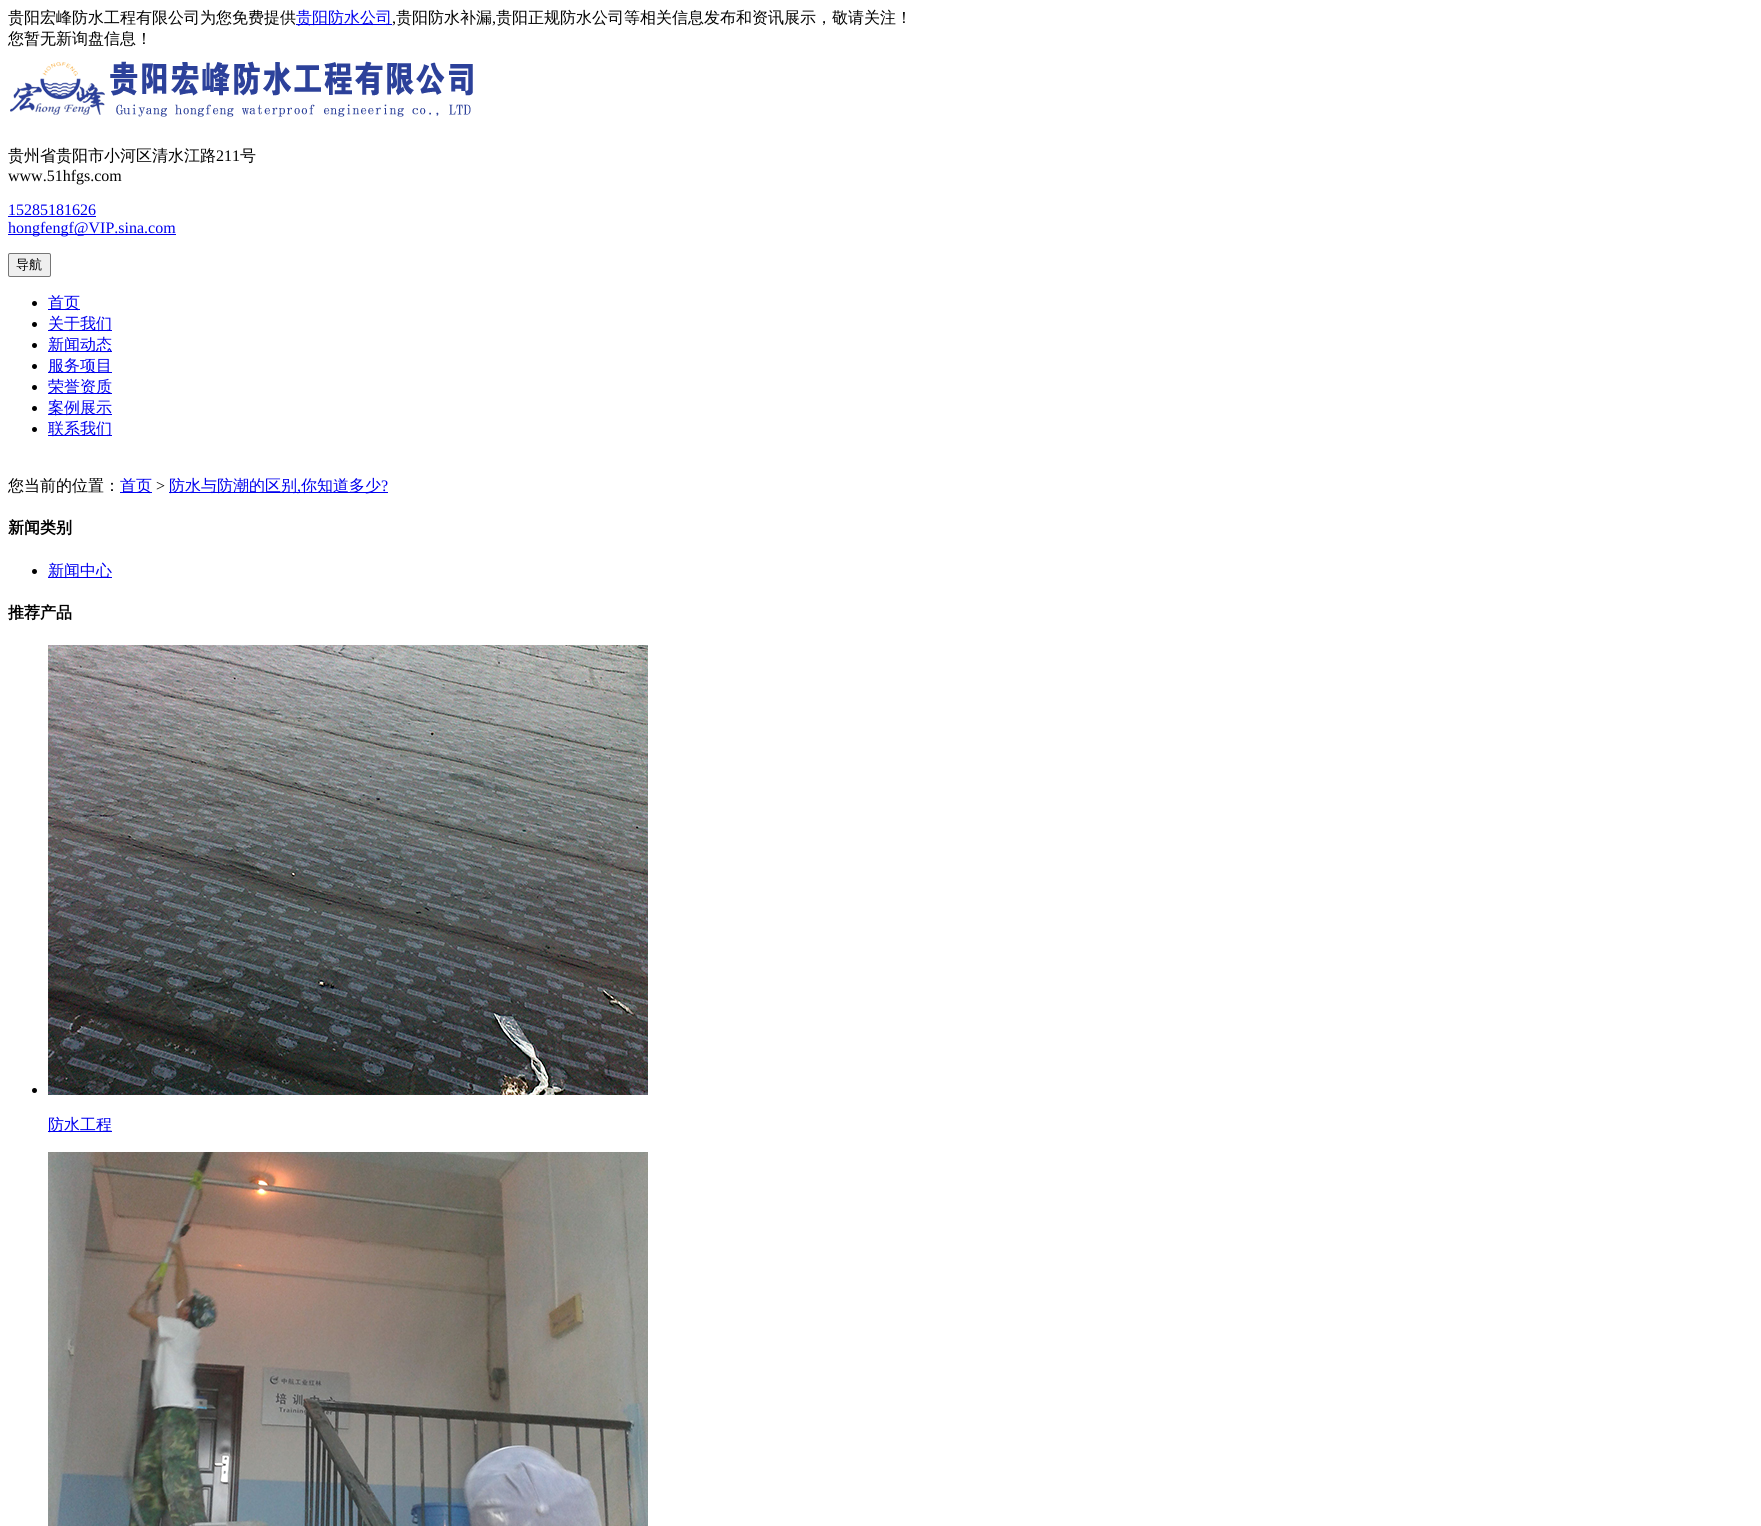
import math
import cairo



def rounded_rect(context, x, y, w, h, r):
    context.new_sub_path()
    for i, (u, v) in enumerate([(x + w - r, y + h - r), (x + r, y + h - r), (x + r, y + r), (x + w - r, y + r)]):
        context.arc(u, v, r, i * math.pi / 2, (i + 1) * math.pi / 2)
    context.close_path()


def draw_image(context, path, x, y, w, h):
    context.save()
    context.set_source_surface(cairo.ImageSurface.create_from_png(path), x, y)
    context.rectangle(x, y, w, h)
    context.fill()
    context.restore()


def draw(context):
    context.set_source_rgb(1, 1, 1)
    context.paint()
    context.set_source_rgb(0, 0, 238 / 255)
    context.rectangle(296, 24, 96, 1)
    context.fill()
    draw_image(context, "images/1.png", 10, 61, 463, 56)
    context.rectangle(8, 216, 88, 1)
    context.fill()
    context.rectangle(8, 234, 168, 1)
    context.fill()
    context.set_source_rgb(239 / 255, 239 / 255, 239 / 255)
    rounded_rect(context, 8.5, 253.5, 42, 23, 1.5)
    context.fill_preserve()
    context.set_source_rgb(118 / 255, 118 / 255, 118 / 255)
    context.set_line_width(1)
    context.stroke()
    context.set_source_rgb(0, 0, 0)
    context.arc(34.5, 303.5, 2.5, 0, 2 * math.pi)
    context.fill()
    context.set_source_rgb(0, 0, 238 / 255)
    context.rectangle(48, 309, 32, 1)
    context.fill()
    context.set_source_rgb(0, 0, 0)
    context.arc(34.5, 324.5, 2.5, 0, 2 * math.pi)
    context.fill()
    context.set_source_rgb(0, 0, 238 / 255)
    context.rectangle(48, 330, 64, 1)
    context.fill()
    context.set_source_rgb(0, 0, 0)
    context.arc(34.5, 345.5, 2.5, 0, 2 * math.pi)
    context.fill()
    context.set_source_rgb(0, 0, 238 / 255)
    context.rectangle(48, 351, 64, 1)
    context.fill()
    context.set_source_rgb(0, 0, 0)
    context.arc(34.5, 366.5, 2.5, 0, 2 * math.pi)
    context.fill()
    context.set_source_rgb(0, 0, 238 / 255)
    context.rectangle(48, 372, 64, 1)
    context.fill()
    context.set_source_rgb(0, 0, 0)
    context.arc(34.5, 387.5, 2.5, 0, 2 * math.pi)
    context.fill()
    context.set_source_rgb(0, 0, 238 / 255)
    context.rectangle(48, 393, 64, 1)
    context.fill()
    context.set_source_rgb(0, 0, 0)
    context.arc(34.5, 408.5, 2.5, 0, 2 * math.pi)
    context.fill()
    context.set_source_rgb(0, 0, 238 / 255)
    context.rectangle(48, 414, 64, 1)
    context.fill()
    context.set_source_rgb(0, 0, 0)
    context.arc(34.5, 429.5, 2.5, 0, 2 * math.pi)
    context.fill()
    context.set_source_rgb(0, 0, 238 / 255)
    context.rectangle(48, 435, 64, 1)
    context.fill()
    context.rectangle(120, 492, 32, 1)
    context.fill()
    context.rectangle(169, 492, 219, 1)
    context.fill()
    context.set_source_rgb(0, 0, 0)
    context.arc(34.5, 571.5, 2.5, 0, 2 * math.pi)
    context.fill()
    context.set_source_rgb(0, 0, 238 / 255)
    context.rectangle(48, 577, 64, 1)
    context.fill()
    context.set_source_rgb(0, 0, 0)
    context.arc(34.5, 1090.5, 2.5, 0, 2 * math.pi)
    context.fill()
    draw_image(context, "images/2.png", 48, 645, 600, 450)
    context.set_source_rgb(0, 0, 238 / 255)
    context.rectangle(48, 1131, 64, 1)
    context.fill()
    draw_image(context, "images/3.png", 48, 1152, 600, 374)
    context.select_font_face("WenQuanYi Zen Hei Medium")
    context.set_font_size(16)
    context.set_source_rgb(0, 0, 0)
    context.move_to(8, 23)
    context.show_text("贵阳宏峰防水工程有限公司为您免费提供")
    context.set_source_rgb(0, 0, 238 / 255)
    context.move_to(296, 23)
    context.show_text("贵阳防水公司")
    context.select_font_face("Liberation Serif")
    context.set_source_rgb(0, 0, 0)
    context.move_to(392, 23)
    context.show_text(",")
    context.select_font_face("WenQuanYi Zen Hei Medium")
    context.move_to(396, 23)
    context.show_text("贵阳防水补漏")
    context.select_font_face("Liberation Serif")
    context.move_to(492, 23)
    context.show_text(",")
    context.select_font_face("WenQuanYi Zen Hei Medium")
    context.move_to(496, 23)
    context.show_text("贵阳正规防水公司等相关信息发布和资讯展示，敬请关注！")
    context.move_to(8, 44)
    context.show_text("您暂无新询盘信息！")
    context.move_to(8, 161)
    context.show_text("贵州省贵阳市小河区清水江路")
    context.select_font_face("Liberation Serif")
    context.move_to(216, 161)
    context.show_text("211")
    context.select_font_face("WenQuanYi Zen Hei Medium")
    context.move_to(240, 161)
    context.show_text("号")
    context.select_font_face("Liberation Serif")
    context.move_to(8, 181)
    context.show_text("www.51hfgs.com")
    context.set_source_rgb(0, 0, 238 / 255)
    context.move_to(8, 215)
    context.show_text("15285181626")
    context.move_to(8, 233)
    context.show_text("hongfengf@VIP.sina.com")
    context.select_font_face("WenQuanYi Zen Hei Medium")
    context.set_font_size(13)
    context.set_source_rgb(0, 0, 0)
    context.move_to(16, 269)
    context.show_text("导航")
    context.set_font_size(16)
    context.set_source_rgb(0, 0, 238 / 255)
    context.move_to(48, 308)
    context.show_text("首页")
    context.move_to(48, 329)
    context.show_text("关于我们")
    context.move_to(48, 350)
    context.show_text("新闻动态")
    context.move_to(48, 371)
    context.show_text("服务项目")
    context.move_to(48, 392)
    context.show_text("荣誉资质")
    context.move_to(48, 413)
    context.show_text("案例展示")
    context.move_to(48, 434)
    context.show_text("联系我们")
    context.set_source_rgb(0, 0, 0)
    context.move_to(8, 491)
    context.show_text("您当前的位置：")
    context.set_source_rgb(0, 0, 238 / 255)
    context.move_to(120, 491)
    context.show_text("首页")
    context.select_font_face("Liberation Serif")
    context.set_source_rgb(0, 0, 0)
    context.move_to(156, 491)
    context.show_text(">")
    context.select_font_face("WenQuanYi Zen Hei Medium")
    context.set_source_rgb(0, 0, 238 / 255)
    context.move_to(169, 491)
    context.show_text("防水与防潮的区别")
    context.move_to(301, 491)
    context.show_text("你知道多少")
    context.select_font_face("Liberation Serif")
    context.move_to(381, 491)
    context.show_text("?")
    context.move_to(297, 491)
    context.show_text(",")
    context.select_font_face("WenQuanYi Zen Hei", cairo.FontSlant.NORMAL, cairo.FontWeight.BOLD)
    context.set_source_rgb(0, 0, 0)
    context.move_to(8, 533)
    context.show_text("新闻类别")
    context.select_font_face("WenQuanYi Zen Hei Medium")
    context.set_source_rgb(0, 0, 238 / 255)
    context.move_to(48, 576)
    context.show_text("新闻中心")
    context.select_font_face("WenQuanYi Zen Hei", cairo.FontSlant.NORMAL, cairo.FontWeight.BOLD)
    context.set_source_rgb(0, 0, 0)
    context.move_to(8, 618)
    context.show_text("推荐产品")
    context.select_font_face("WenQuanYi Zen Hei Medium")
    context.set_source_rgb(0, 0, 238 / 255)
    context.move_to(48, 1130)
    context.show_text("防水工程")


surface = cairo.ImageSurface(cairo.Format.RGB24, 1761, 1526)
context = cairo.Context(surface)
options = cairo.FontOptions()
options.set_hint_metrics(cairo.HintMetrics.OFF)
options.set_hint_style(cairo.HintStyle.NONE)
context.set_font_options(options)
context.set_miter_limit(4)
draw(context)
surface.write_to_png("out.png")
